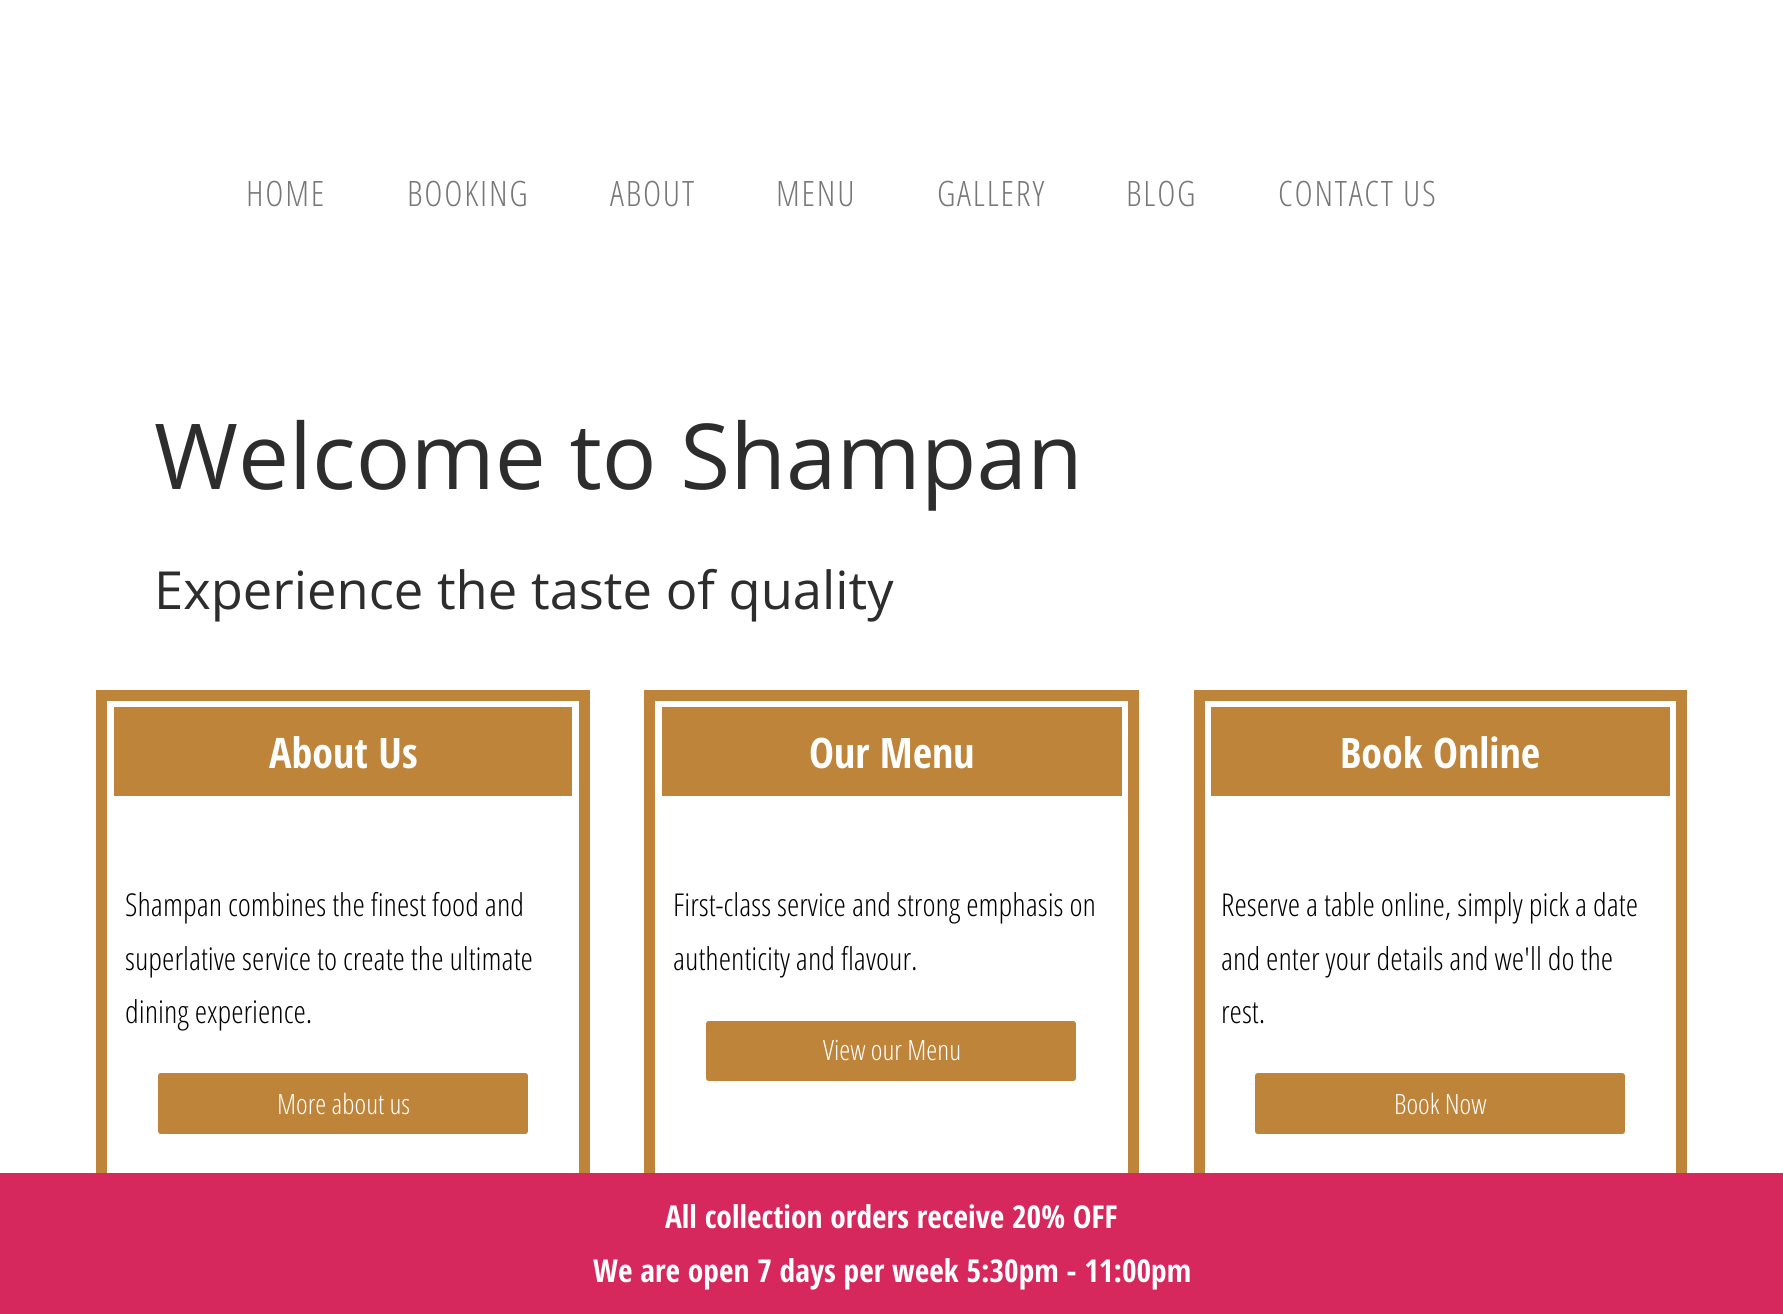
import math
import cairo



def draw_spaced(context, x, y, s, letter, word):
    context.move_to(x, y)
    for ch in s:
        context.show_text(ch)
        context.rel_move_to(letter + word * (ch == ' '), 0)


def rounded_rect(context, x, y, w, h, r):
    context.new_sub_path()
    for i, (u, v) in enumerate([(x + w - r, y + h - r), (x + r, y + h - r), (x + r, y + r), (x + w - r, y + r)]):
        context.arc(u, v, r, i * math.pi / 2, (i + 1) * math.pi / 2)
    context.close_path()


def draw(context):
    context.set_source_rgb(1, 1, 1)
    context.paint()
    context.rectangle(101.5, 695.5, 483, 601)
    context.set_source_rgb(190 / 255, 132 / 255, 58 / 255)
    context.set_line_width(11)
    context.stroke()
    context.rectangle(114, 707, 458, 89)
    context.fill()
    rounded_rect(context, 156, 1071, 374, 65, 5)
    context.fill_preserve()
    context.set_source_rgb(1, 1, 1)
    context.set_line_width(4)
    context.stroke()
    context.rectangle(649.5, 695.5, 484, 601)
    context.set_source_rgb(190 / 255, 132 / 255, 58 / 255)
    context.set_line_width(11)
    context.stroke()
    context.rectangle(662, 707, 460, 89)
    context.fill()
    rounded_rect(context, 704, 1019, 374, 64, 5)
    context.fill_preserve()
    context.set_source_rgb(1, 1, 1)
    context.set_line_width(4)
    context.stroke()
    context.rectangle(1199.5, 695.5, 482, 601)
    context.set_source_rgb(190 / 255, 132 / 255, 58 / 255)
    context.set_line_width(11)
    context.stroke()
    context.rectangle(1211, 707, 459, 89)
    context.fill()
    rounded_rect(context, 1253, 1071, 374, 65, 5)
    context.fill_preserve()
    context.set_source_rgb(1, 1, 1)
    context.set_line_width(4)
    context.stroke()
    context.set_source_rgb(215 / 255, 40 / 255, 93 / 255)
    context.rectangle(0, 1173, 1783, 141)
    context.fill()
    context.select_font_face("Open Sans Condensed Light")
    context.set_font_size(35)
    context.set_source_rgb(119 / 255, 119 / 255, 119 / 255)
    draw_spaced(context, 246, 206, "HOME", 1.75, 0)
    draw_spaced(context, 407, 206, "BOOKING", 1.75, 0)
    draw_spaced(context, 610, 206, "ABOUT", 1.75, 0)
    draw_spaced(context, 776, 206, "MENU", 1.75, 0)
    draw_spaced(context, 937, 206, "GALLERY", 1.75, 0)
    draw_spaced(context, 1126, 206, "BLOG", 1.75, 0)
    draw_spaced(context, 1278, 206, "CONTACT US", 1.75, 0)
    context.select_font_face("Open Sans")
    context.set_font_size(91)
    context.set_source_rgb(45 / 255, 45 / 255, 45 / 255)
    context.move_to(154, 489)
    context.show_text("Welcome to Shampan")
    context.set_font_size(52.5)
    context.move_to(154, 609)
    context.show_text("Experience the taste of quality")
    context.select_font_face("Open Sans Condensed", cairo.FontSlant.NORMAL, cairo.FontWeight.BOLD)
    context.set_font_size(42)
    context.set_source_rgb(1, 1, 1)
    context.move_to(269, 768)
    context.show_text("About Us")
    context.select_font_face("Open Sans Condensed Light")
    context.set_font_size(31.5)
    context.set_source_rgb(1 / 255, 1 / 255, 1 / 255)
    context.move_to(125, 916)
    context.show_text("Shampan combines the finest food and")
    context.move_to(125, 970)
    context.show_text("superlative service to create the ultimate")
    context.move_to(125, 1023)
    context.show_text("dining experience.")
    context.set_font_size(28)
    context.set_source_rgb(1, 1, 1)
    context.move_to(277, 1114)
    context.show_text("More about us")
    context.select_font_face("Open Sans Condensed", cairo.FontSlant.NORMAL, cairo.FontWeight.BOLD)
    context.set_font_size(42)
    context.move_to(809, 768)
    context.show_text("Our Menu")
    context.select_font_face("Open Sans Condensed Light")
    context.set_font_size(31.5)
    context.set_source_rgb(1 / 255, 1 / 255, 1 / 255)
    context.move_to(673, 916)
    context.show_text("First-class service and strong emphasis on")
    context.move_to(673, 970)
    context.show_text("authenticity and flavour.")
    context.set_font_size(28)
    context.set_source_rgb(1, 1, 1)
    context.move_to(823, 1060)
    context.show_text("View our Menu")
    context.select_font_face("Open Sans Condensed", cairo.FontSlant.NORMAL, cairo.FontWeight.BOLD)
    context.set_font_size(42)
    context.move_to(1340, 768)
    context.show_text("Book Online")
    context.select_font_face("Open Sans Condensed Light")
    context.set_font_size(31.5)
    context.set_source_rgb(1 / 255, 1 / 255, 1 / 255)
    context.move_to(1221, 916)
    context.show_text("Reserve a table online, simply pick a date")
    context.move_to(1221, 970)
    context.show_text("and enter your details and we'll do the")
    context.move_to(1221, 1023)
    context.show_text("rest.")
    context.set_font_size(28)
    context.set_source_rgb(1, 1, 1)
    context.move_to(1394, 1114)
    context.show_text("Book Now")
    context.select_font_face("Open Sans Condensed", cairo.FontSlant.NORMAL, cairo.FontWeight.BOLD)
    context.set_font_size(31.5)
    context.move_to(665, 1228)
    context.show_text("All collection orders receive 20% OFF")
    context.move_to(593, 1282)
    context.show_text("We are open 7 days per week 5:30pm - 11:00pm")


surface = cairo.ImageSurface(cairo.Format.RGB24, 1783, 1314)
context = cairo.Context(surface)
options = cairo.FontOptions()
options.set_hint_metrics(cairo.HintMetrics.OFF)
options.set_hint_style(cairo.HintStyle.NONE)
context.set_font_options(options)
context.set_miter_limit(4)
draw(context)
surface.write_to_png("out.png")
